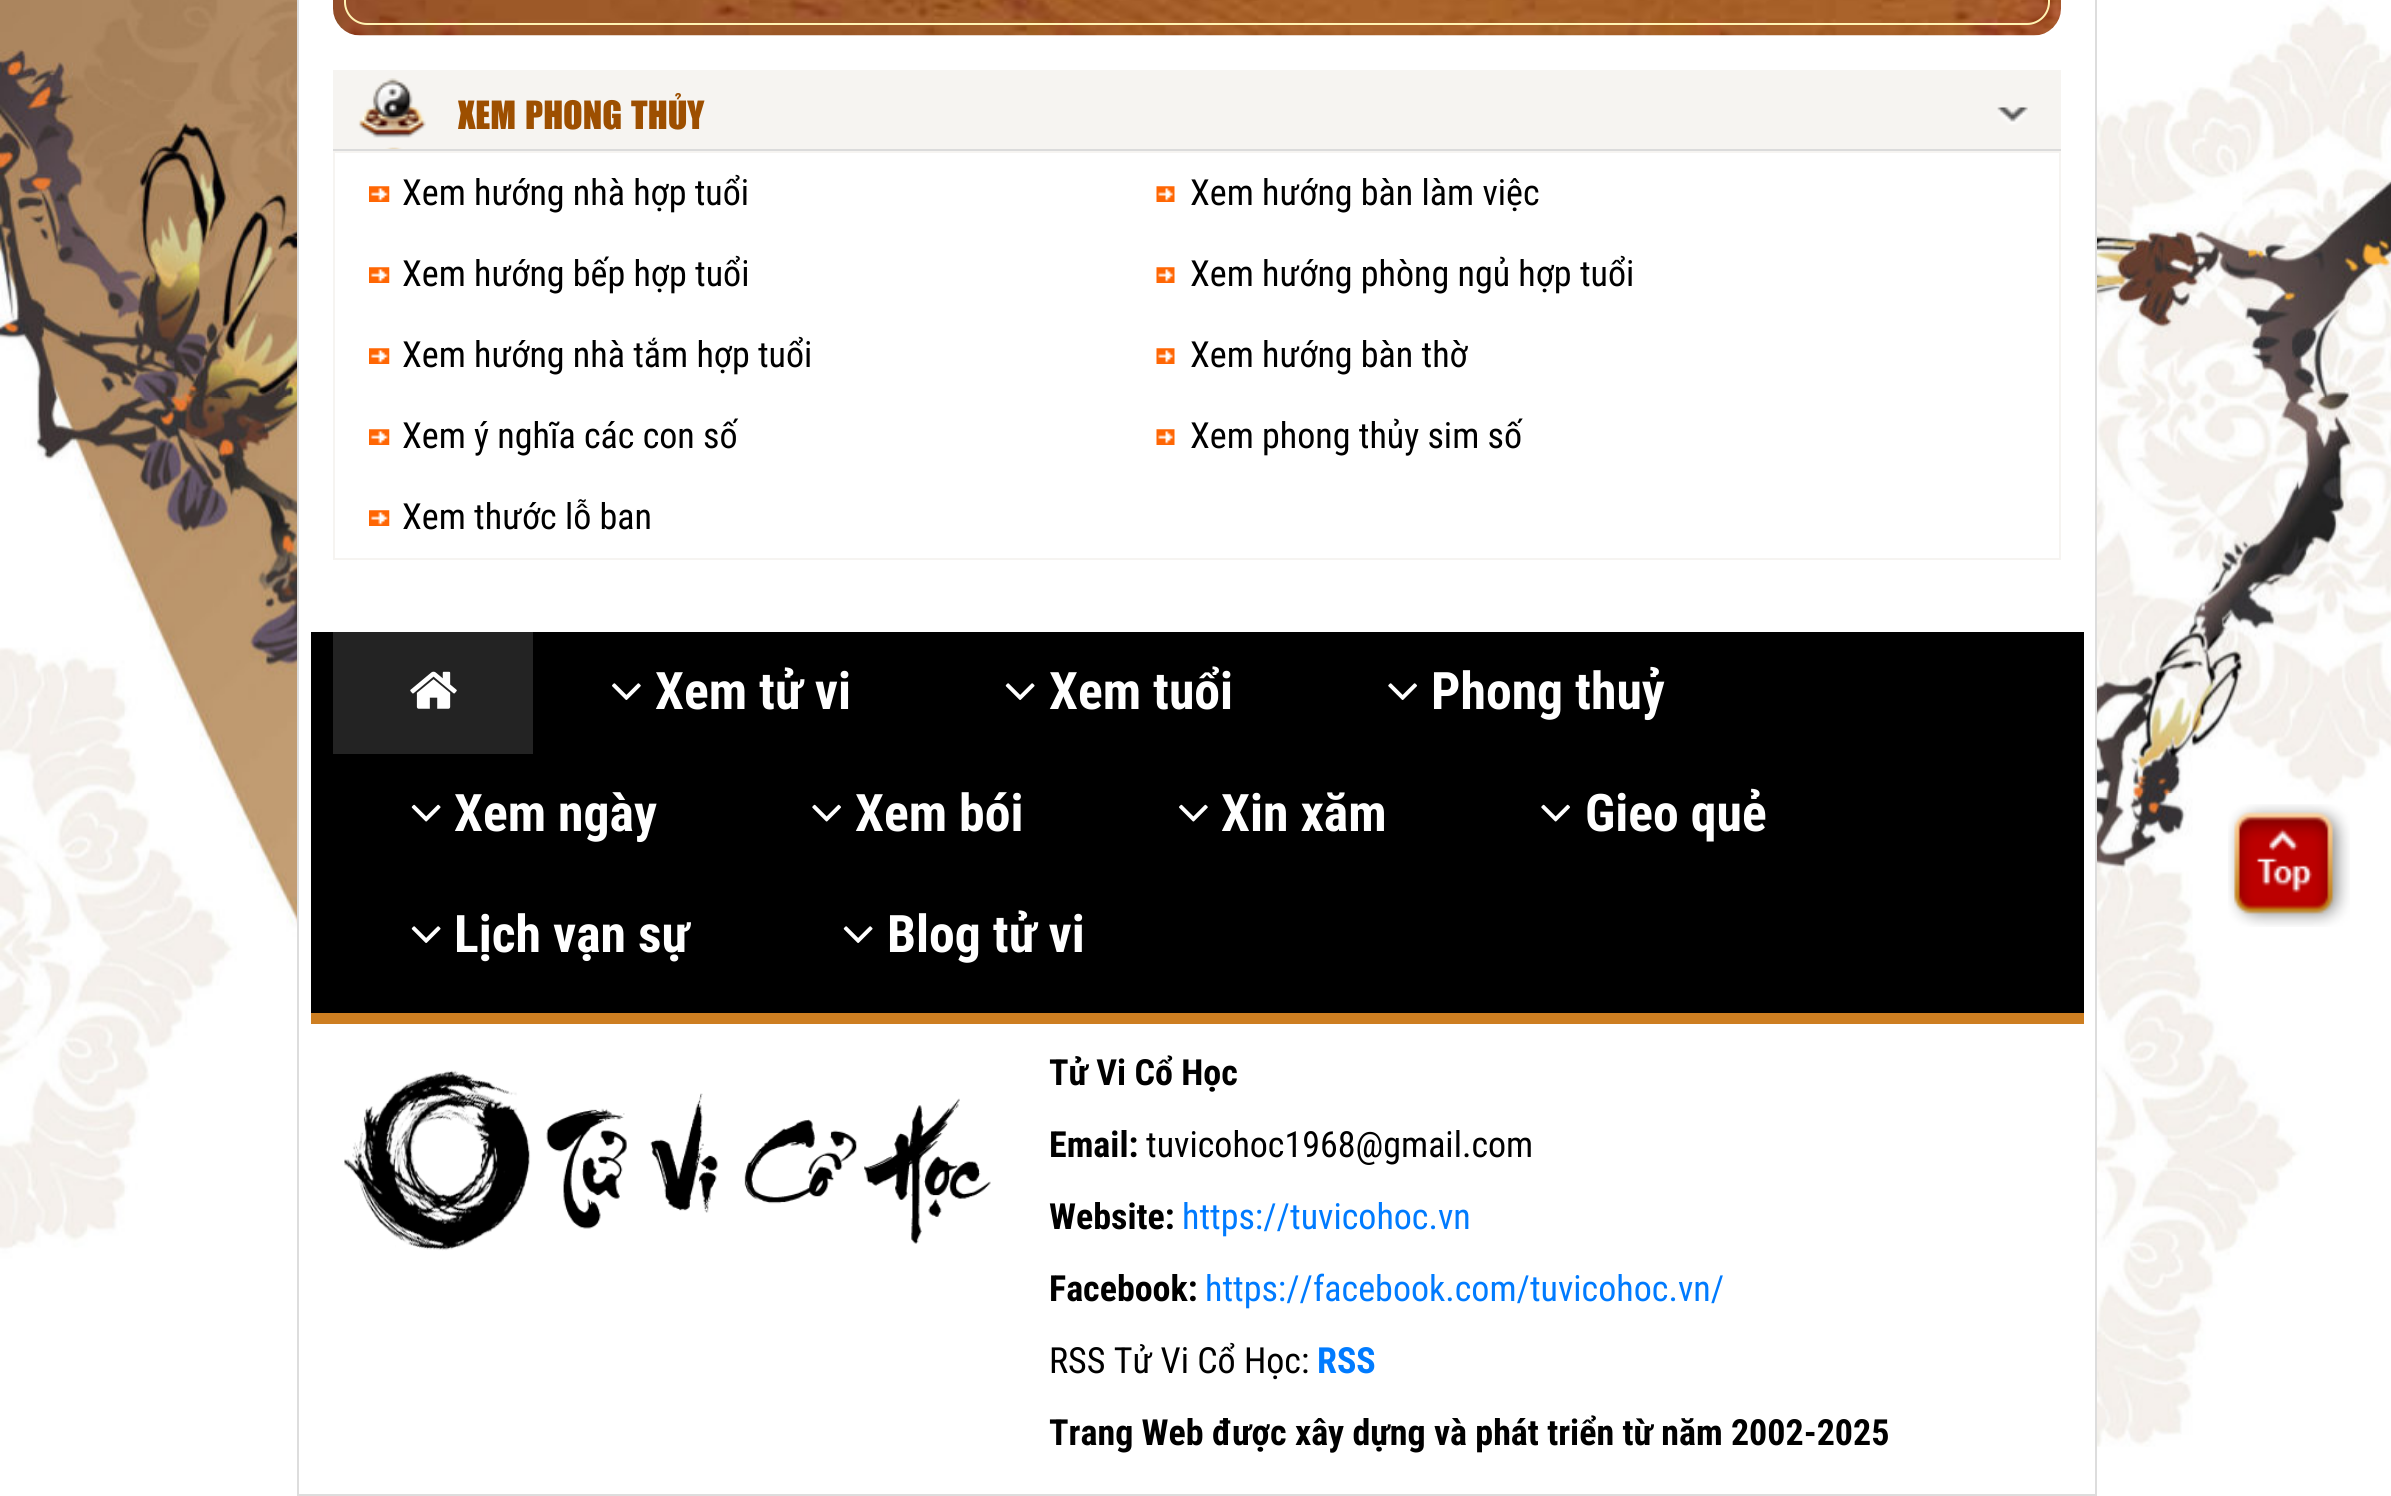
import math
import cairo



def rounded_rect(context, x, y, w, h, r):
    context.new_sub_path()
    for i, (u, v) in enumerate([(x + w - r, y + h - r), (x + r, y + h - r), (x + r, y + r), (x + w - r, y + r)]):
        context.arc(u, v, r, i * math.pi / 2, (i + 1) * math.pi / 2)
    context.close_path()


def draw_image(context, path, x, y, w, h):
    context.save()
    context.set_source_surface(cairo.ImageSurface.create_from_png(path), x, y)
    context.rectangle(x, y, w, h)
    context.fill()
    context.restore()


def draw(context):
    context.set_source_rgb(1, 1, 1)
    context.paint()
    draw_image(context, "images/1.png", 0, 0, 2391, 1496)
    context.set_source_rgb(1, 1, 1)
    context.rectangle(298, -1, 1798, 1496)
    context.fill_preserve()
    context.set_source_rgb(221 / 255, 221 / 255, 221 / 255)
    context.stroke()
    draw_image(context, "images/2.png", 333, 0, 1728, 36)
    rounded_rect(context, 345, -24, 1704, 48, 22)
    context.set_source_rgb(1, 243 / 255, 178 / 255)
    context.stroke()
    context.set_source_rgb(246 / 255, 244 / 255, 241 / 255)
    context.rectangle(333, 70, 1728, 79)
    context.fill()
    draw_image(context, "images/3.png", 358, 78, 68, 71)
    context.set_source_rgb(219 / 255, 219 / 255, 219 / 255)
    context.rectangle(333, 149, 1728, 2)
    context.fill()
    draw_image(context, "images/4.png", 1997, 107, 31, 18)
    context.rectangle(334, 152, 1726, 407)
    context.set_source_rgb(246 / 255, 244 / 255, 241 / 255)
    context.stroke()
    draw_image(context, "images/5.png", 369, 186, 21, 16)
    draw_image(context, "images/6.png", 1156, 186, 19, 16)
    draw_image(context, "images/7.png", 369, 267, 21, 16)
    draw_image(context, "images/8.png", 1156, 267, 19, 16)
    draw_image(context, "images/7.png", 369, 348, 21, 16)
    draw_image(context, "images/8.png", 1156, 348, 19, 16)
    draw_image(context, "images/7.png", 369, 429, 21, 16)
    draw_image(context, "images/8.png", 1156, 429, 19, 16)
    draw_image(context, "images/7.png", 369, 510, 21, 16)
    context.set_source_rgb(0, 0, 0)
    context.rectangle(311, 632, 1773, 381)
    context.fill()
    context.set_source_rgb(205 / 255, 126 / 255, 33 / 255)
    context.rectangle(311, 1013, 1773, 11)
    context.fill()
    context.set_source_rgb(35 / 255, 35 / 255, 35 / 255)
    context.rectangle(333, 632, 200, 122)
    context.fill()
    draw_image(context, "images/9.png", 410, 671, 47, 38)
    draw_image(context, "images/10.png", 612, 683, 29, 17)
    draw_image(context, "images/11.png", 1005, 683, 30, 17)
    draw_image(context, "images/12.png", 1388, 683, 29, 17)
    draw_image(context, "images/13.png", 411, 804, 30, 18)
    draw_image(context, "images/14.png", 812, 804, 29, 18)
    draw_image(context, "images/15.png", 1179, 804, 29, 18)
    draw_image(context, "images/14.png", 1541, 804, 29, 18)
    draw_image(context, "images/11.png", 411, 926, 30, 17)
    draw_image(context, "images/11.png", 843, 926, 30, 17)
    draw_image(context, "images/16.png", 344, 1070, 647, 181)
    draw_image(context, "images/17.png", 2228, 804, 122, 123)
    context.select_font_face("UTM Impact")
    context.set_font_size(36)
    context.set_source_rgb(157 / 255, 79 / 255, 0)
    context.move_to(458, 129)
    context.show_text("XEM PHONG THỦY")
    context.select_font_face("Roboto Condensed")
    context.set_source_rgb(0, 0, 0)
    context.move_to(402, 205)
    context.show_text("Xem hướng nhà hợp tuổi")
    context.move_to(1190, 205)
    context.show_text("Xem hướng bàn làm việc")
    context.move_to(402, 286)
    context.show_text("Xem hướng bếp hợp tuổi")
    context.move_to(1190, 286)
    context.show_text("Xem hướng phòng ngủ hợp tuổi")
    context.move_to(402, 367)
    context.show_text("Xem hướng nhà tắm hợp tuổi")
    context.move_to(1190, 367)
    context.show_text("Xem hướng bàn thờ")
    context.move_to(402, 448)
    context.show_text("Xem ý nghĩa các con số")
    context.move_to(1190, 448)
    context.show_text("Xem phong thủy sim số")
    context.move_to(402, 529)
    context.show_text("Xem thước lỗ ban")
    context.select_font_face("Roboto Condensed", cairo.FontSlant.NORMAL, cairo.FontWeight.BOLD)
    context.set_font_size(51.75)
    context.set_source_rgb(1, 1, 1)
    context.move_to(655, 709)
    context.show_text("Xem tử vi")
    context.move_to(1049, 709)
    context.show_text("Xem tuổi")
    context.move_to(1431, 709)
    context.show_text("Phong thuỷ")
    context.move_to(454, 831)
    context.show_text("Xem ngày")
    context.move_to(855, 831)
    context.show_text("Xem bói")
    context.move_to(1221, 831)
    context.show_text("Xin xăm")
    context.move_to(1585, 831)
    context.show_text("Gieo quẻ")
    context.move_to(454, 952)
    context.show_text("Lịch vạn sự")
    context.move_to(887, 952)
    context.show_text("Blog tử vi")
    context.set_font_size(36)
    context.set_source_rgb(0, 0, 0)
    context.move_to(1049, 1085)
    context.show_text("Tử Vi Cổ Học")
    context.move_to(1049, 1157)
    context.show_text("Email:")
    context.select_font_face("Roboto Condensed")
    context.move_to(1146, 1157)
    context.show_text("tuvicohoc1968@gmail.com")
    context.select_font_face("Roboto Condensed", cairo.FontSlant.NORMAL, cairo.FontWeight.BOLD)
    context.move_to(1049, 1229)
    context.show_text("Website:")
    context.select_font_face("Roboto Condensed")
    context.set_source_rgb(0, 123 / 255, 1)
    context.move_to(1182, 1229)
    context.show_text("https://tuvicohoc.vn")
    context.select_font_face("Roboto Condensed", cairo.FontSlant.NORMAL, cairo.FontWeight.BOLD)
    context.set_source_rgb(0, 0, 0)
    context.move_to(1049, 1301)
    context.show_text("Facebook:")
    context.select_font_face("Roboto Condensed")
    context.set_source_rgb(0, 123 / 255, 1)
    context.move_to(1205, 1301)
    context.show_text("https://facebook.com/tuvicohoc.vn/")
    context.set_source_rgb(0, 0, 0)
    context.move_to(1049, 1373)
    context.show_text("RSS Tử Vi Cổ Học:")
    context.select_font_face("Roboto Condensed", cairo.FontSlant.NORMAL, cairo.FontWeight.BOLD)
    context.set_source_rgb(0, 123 / 255, 1)
    context.move_to(1317, 1373)
    context.show_text("RSS")
    context.set_source_rgb(0, 0, 0)
    context.move_to(1049, 1445)
    context.show_text("Trang Web được xây dựng và phát triển từ năm 2002-2025")


surface = cairo.ImageSurface(cairo.Format.RGB24, 2391, 1496)
context = cairo.Context(surface)
options = cairo.FontOptions()
options.set_hint_metrics(cairo.HintMetrics.OFF)
options.set_hint_style(cairo.HintStyle.NONE)
context.set_font_options(options)
context.set_miter_limit(4)
draw(context)
surface.write_to_png("out.png")
